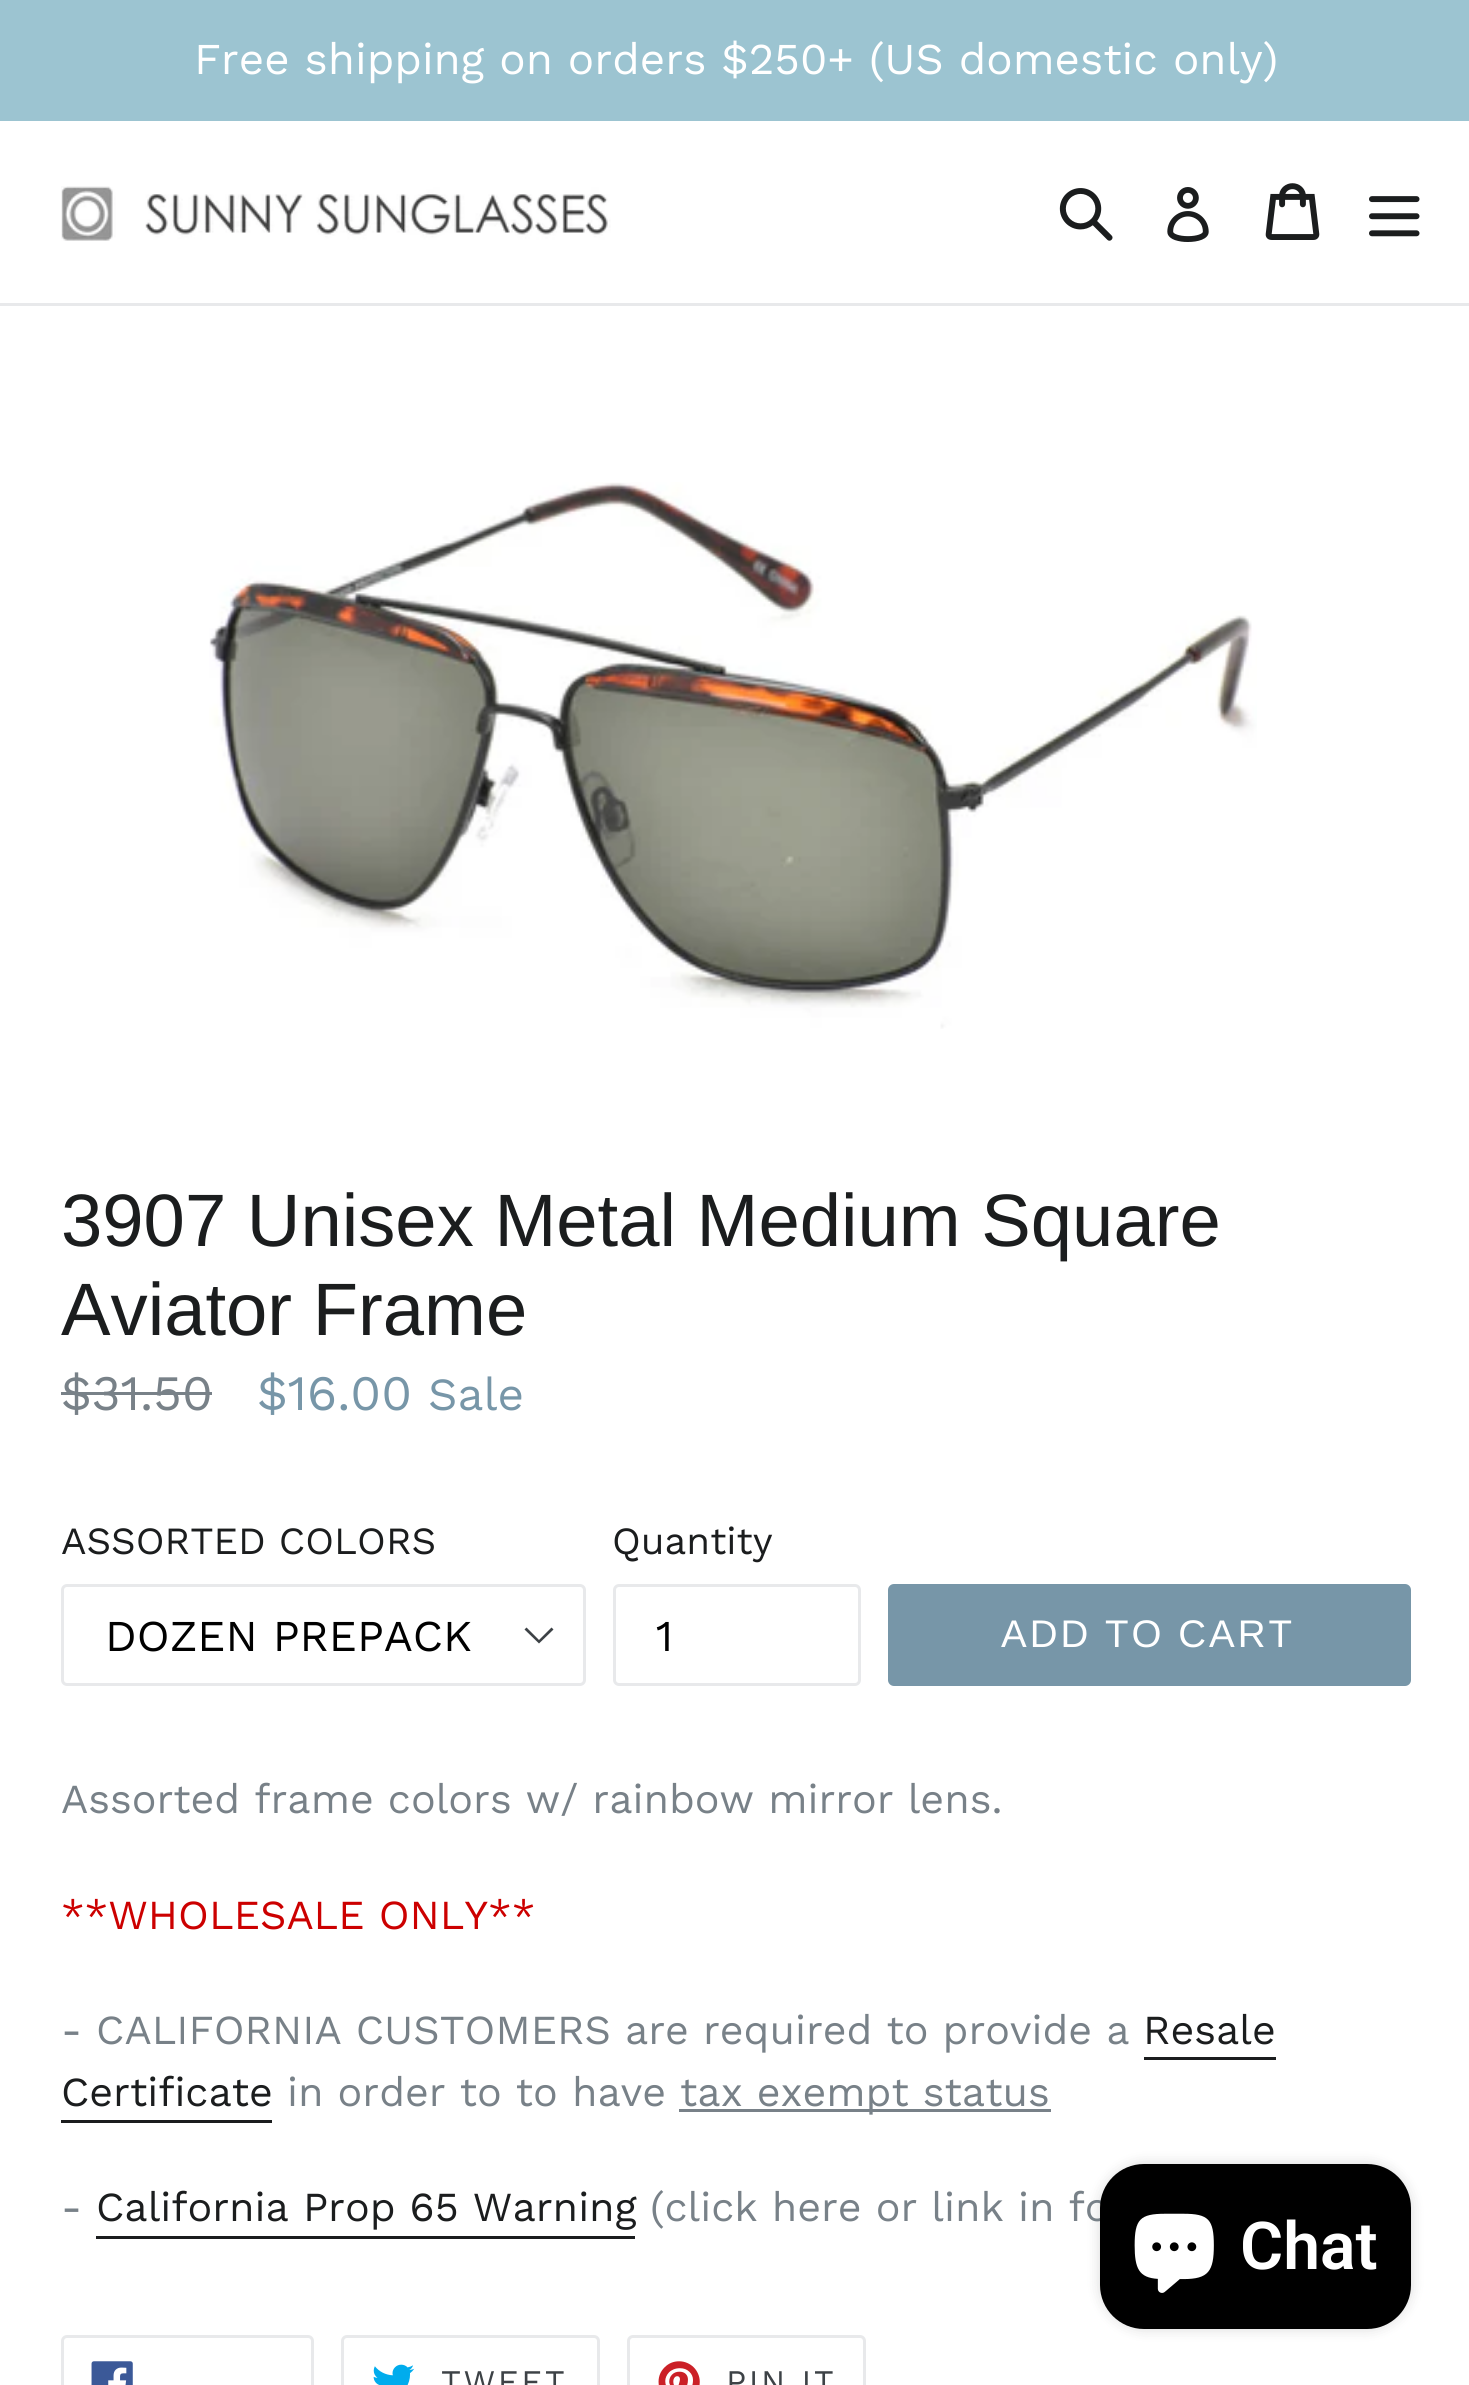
import math
import cairo



def draw_spaced(context, x, y, s, letter, word):
    context.move_to(x, y)
    for ch in s:
        context.show_text(ch)
        context.rel_move_to(letter + word * (ch == ' '), 0)


def rounded_rect(context, x, y, w, h, r):
    context.new_sub_path()
    for i, (u, v) in enumerate([(x + w - r, y + h - r), (x + r, y + h - r), (x + r, y + r), (x + w - r, y + r)]):
        context.arc(u, v, r, i * math.pi / 2, (i + 1) * math.pi / 2)
    context.close_path()


def draw_shadow(context, x, y, w, h, r, blur, alpha):
    context.push_group_with_content(cairo.Content.ALPHA)
    context.set_operator(cairo.Operator.SOURCE)
    for i in range(15, -16, -2):
        e = blur * i / 6
        if min(w, h) + 2 * e > 0:
            context.set_source_rgba(0, 0, 0, alpha * math.erfc((i - 1) / 8.5) / 2)
            rounded_rect(context, x - e, y - e, w + 2 * e, h + 2 * e, max(0, min(r + e + blur * .6, min(w, h) / 2 + e)))
            context.fill()
    context.mask(context.pop_group())


def draw_image(context, path, x, y, w, h):
    context.save()
    context.set_source_surface(cairo.ImageSurface.create_from_png(path), x, y)
    context.rectangle(x, y, w, h)
    context.fill()
    context.restore()


def draw(context):
    context.set_source_rgb(1, 1, 1)
    context.paint()
    context.set_source_rgb(156 / 255, 196 / 255, 209 / 255)
    context.rectangle(0, 0, 1469, 121)
    context.fill()
    context.set_source_rgb(232 / 255, 233 / 255, 235 / 255)
    context.rectangle(0, 303, 1469, 3)
    context.fill()
    draw_image(context, "images/1.png", 61, 186, 550, 55)
    draw_image(context, "images/2.png", 1059, 188, 54, 53)
    draw_image(context, "images/3.png", 1167, 187, 42, 55)
    draw_image(context, "images/4.png", 1265, 183, 55, 57)
    draw_image(context, "images/5.png", 1369, 196, 51, 41)
    draw_image(context, "images/6.png", 209, 482, 1048, 547)
    context.set_source_rgb(120 / 255, 129 / 255, 136 / 255)
    context.rectangle(61, 1392, 151, 3)
    context.fill()
    context.set_source_rgb(61 / 255, 66 / 255, 70 / 255)
    context.new_path()
    context.move_to(539, 1643.5)
    context.line_to(524.5, 1629.5)
    context.line_to(526.5, 1627.5)
    context.line_to(539, 1640)
    context.line_to(551.5, 1627.5)
    context.line_to(553.5, 1629.5)
    context.close_path()
    context.fill()
    rounded_rect(context, 62.5, 1585.5, 522, 99, 4.5)
    context.set_source_rgb(232 / 255, 233 / 255, 235 / 255)
    context.set_line_width(3)
    context.stroke()
    rounded_rect(context, 614.5, 1585.5, 245, 99, 4.5)
    context.stroke()
    context.set_source_rgb(119 / 255, 150 / 255, 168 / 255)
    rounded_rect(context, 888, 1584, 523, 102, 6)
    context.fill()
    context.set_source_rgb(27 / 255, 29 / 255, 30 / 255)
    context.rectangle(1144, 2057, 132, 3)
    context.fill()
    context.rectangle(61, 2120, 211, 3)
    context.fill()
    context.set_source_rgb(120 / 255, 129 / 255, 136 / 255)
    context.rectangle(679, 2109, 372, 3)
    context.fill()
    context.set_source_rgb(27 / 255, 29 / 255, 30 / 255)
    context.rectangle(96, 2236, 539, 3)
    context.fill()
    rounded_rect(context, 62.5, 2336.5, 250, 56, 4.5)
    context.set_source_rgb(232 / 255, 233 / 255, 235 / 255)
    context.stroke()
    draw_image(context, "images/7.png", 91, 2361, 42, 24)
    rounded_rect(context, 342.5, 2336.5, 256, 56, 4.5)
    context.stroke()
    draw_image(context, "images/8.png", 373, 2364, 42, 21)
    rounded_rect(context, 628.5, 2336.5, 236, 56, 4.5)
    context.stroke()
    draw_image(context, "images/9.png", 658, 2361, 42, 24)
    context.set_source_rgb(0, 0, 0)
    draw_shadow(context, 1100, 2164, 311, 165, 44, 7, 0.15)
    context.select_font_face("Work Sans")
    context.set_font_size(44)
    context.set_source_rgb(1, 1, 1)
    context.move_to(194, 74)
    context.show_text("Free shipping on orders $250+ (US domestic only)")
    context.select_font_face("Liberation Sans")
    context.set_font_size(74.25)
    context.set_source_rgb(27 / 255, 29 / 255, 30 / 255)
    context.move_to(61, 1246)
    context.show_text("3907 Unisex Metal Medium Square")
    context.move_to(61, 1335)
    context.show_text("Aviator Frame")
    context.select_font_face("Work Sans")
    context.set_font_size(49.5)
    context.set_source_rgb(120 / 255, 129 / 255, 136 / 255)
    context.move_to(61, 1410)
    context.show_text("$31.50")
    context.set_source_rgb(119 / 255, 150 / 255, 168 / 255)
    context.move_to(257, 1410)
    context.show_text("$16.00")
    context.set_font_size(46)
    context.move_to(428, 1410)
    context.show_text("Sale")
    context.set_font_size(38.5)
    context.set_source_rgb(27 / 255, 29 / 255, 30 / 255)
    context.move_to(61, 1554)
    context.show_text("ASSORTED COLORS")
    context.set_font_size(44)
    context.set_source_rgb(0, 0, 0)
    context.move_to(105, 1651)
    context.show_text("DOZEN PREPACK")
    context.set_font_size(38.5)
    context.set_source_rgb(27 / 255, 29 / 255, 30 / 255)
    context.move_to(612, 1554)
    context.show_text("Quantity")
    context.set_font_size(44)
    context.set_source_rgb(0, 0, 0)
    context.move_to(656, 1651)
    context.show_text("1")
    context.select_font_face("Liberation Sans")
    context.set_font_size(38.5)
    context.set_source_rgb(1, 1, 1)
    draw_spaced(context, 1001, 1647, "ADD TO CART", 3, 0)
    context.select_font_face("Work Sans")
    context.set_font_size(41.25)
    context.set_source_rgb(120 / 255, 129 / 255, 136 / 255)
    context.move_to(61, 1813)
    context.show_text("Assorted frame colors w/ rainbow mirror lens.")
    context.set_source_rgb(204 / 255, 0, 0)
    context.move_to(61, 1929)
    context.show_text("**WHOLESALE ONLY**")
    context.set_source_rgb(120 / 255, 129 / 255, 136 / 255)
    context.move_to(61, 2044)
    context.show_text("- CALIFORNIA CUSTOMERS are required to provide a")
    context.set_source_rgb(27 / 255, 29 / 255, 30 / 255)
    context.move_to(1143, 2044)
    context.show_text("Resale")
    context.move_to(61, 2106)
    context.show_text("Certificate")
    context.set_source_rgb(120 / 255, 129 / 255, 136 / 255)
    context.move_to(287, 2106)
    context.show_text("in order to to have")
    context.move_to(680, 2106)
    context.show_text("tax exempt status")
    context.move_to(61, 2221)
    context.show_text("-")
    context.set_source_rgb(27 / 255, 29 / 255, 30 / 255)
    context.move_to(96, 2221)
    context.show_text("California Prop 65 Warning")
    context.set_source_rgb(120 / 255, 129 / 255, 136 / 255)
    context.move_to(650, 2221)
    context.show_text("(click here or link in fo")
    context.set_font_size(33)
    context.set_source_rgb(61 / 255, 66 / 255, 70 / 255)
    draw_spaced(context, 441, 2393, "TWEET", 2.5, 0)
    draw_spaced(context, 726, 2393, "PIN IT", 2.5, 0)
    context.set_source_rgb(0, 0, 0)
    rounded_rect(context, 1100, 2164, 311, 165, 44)
    context.fill()
    draw_image(context, "images/10.png", 1134, 2213, 80, 80)
    context.select_font_face("Roboto SemiBold")
    context.set_font_size(66)
    context.set_source_rgb(1, 1, 1)
    context.move_to(1240, 2269)
    context.show_text("Chat")


surface = cairo.ImageSurface(cairo.Format.RGB24, 1469, 2385)
context = cairo.Context(surface)
options = cairo.FontOptions()
options.set_hint_metrics(cairo.HintMetrics.OFF)
options.set_hint_style(cairo.HintStyle.NONE)
context.set_font_options(options)
context.set_miter_limit(4)
draw(context)
surface.write_to_png("out.png")
